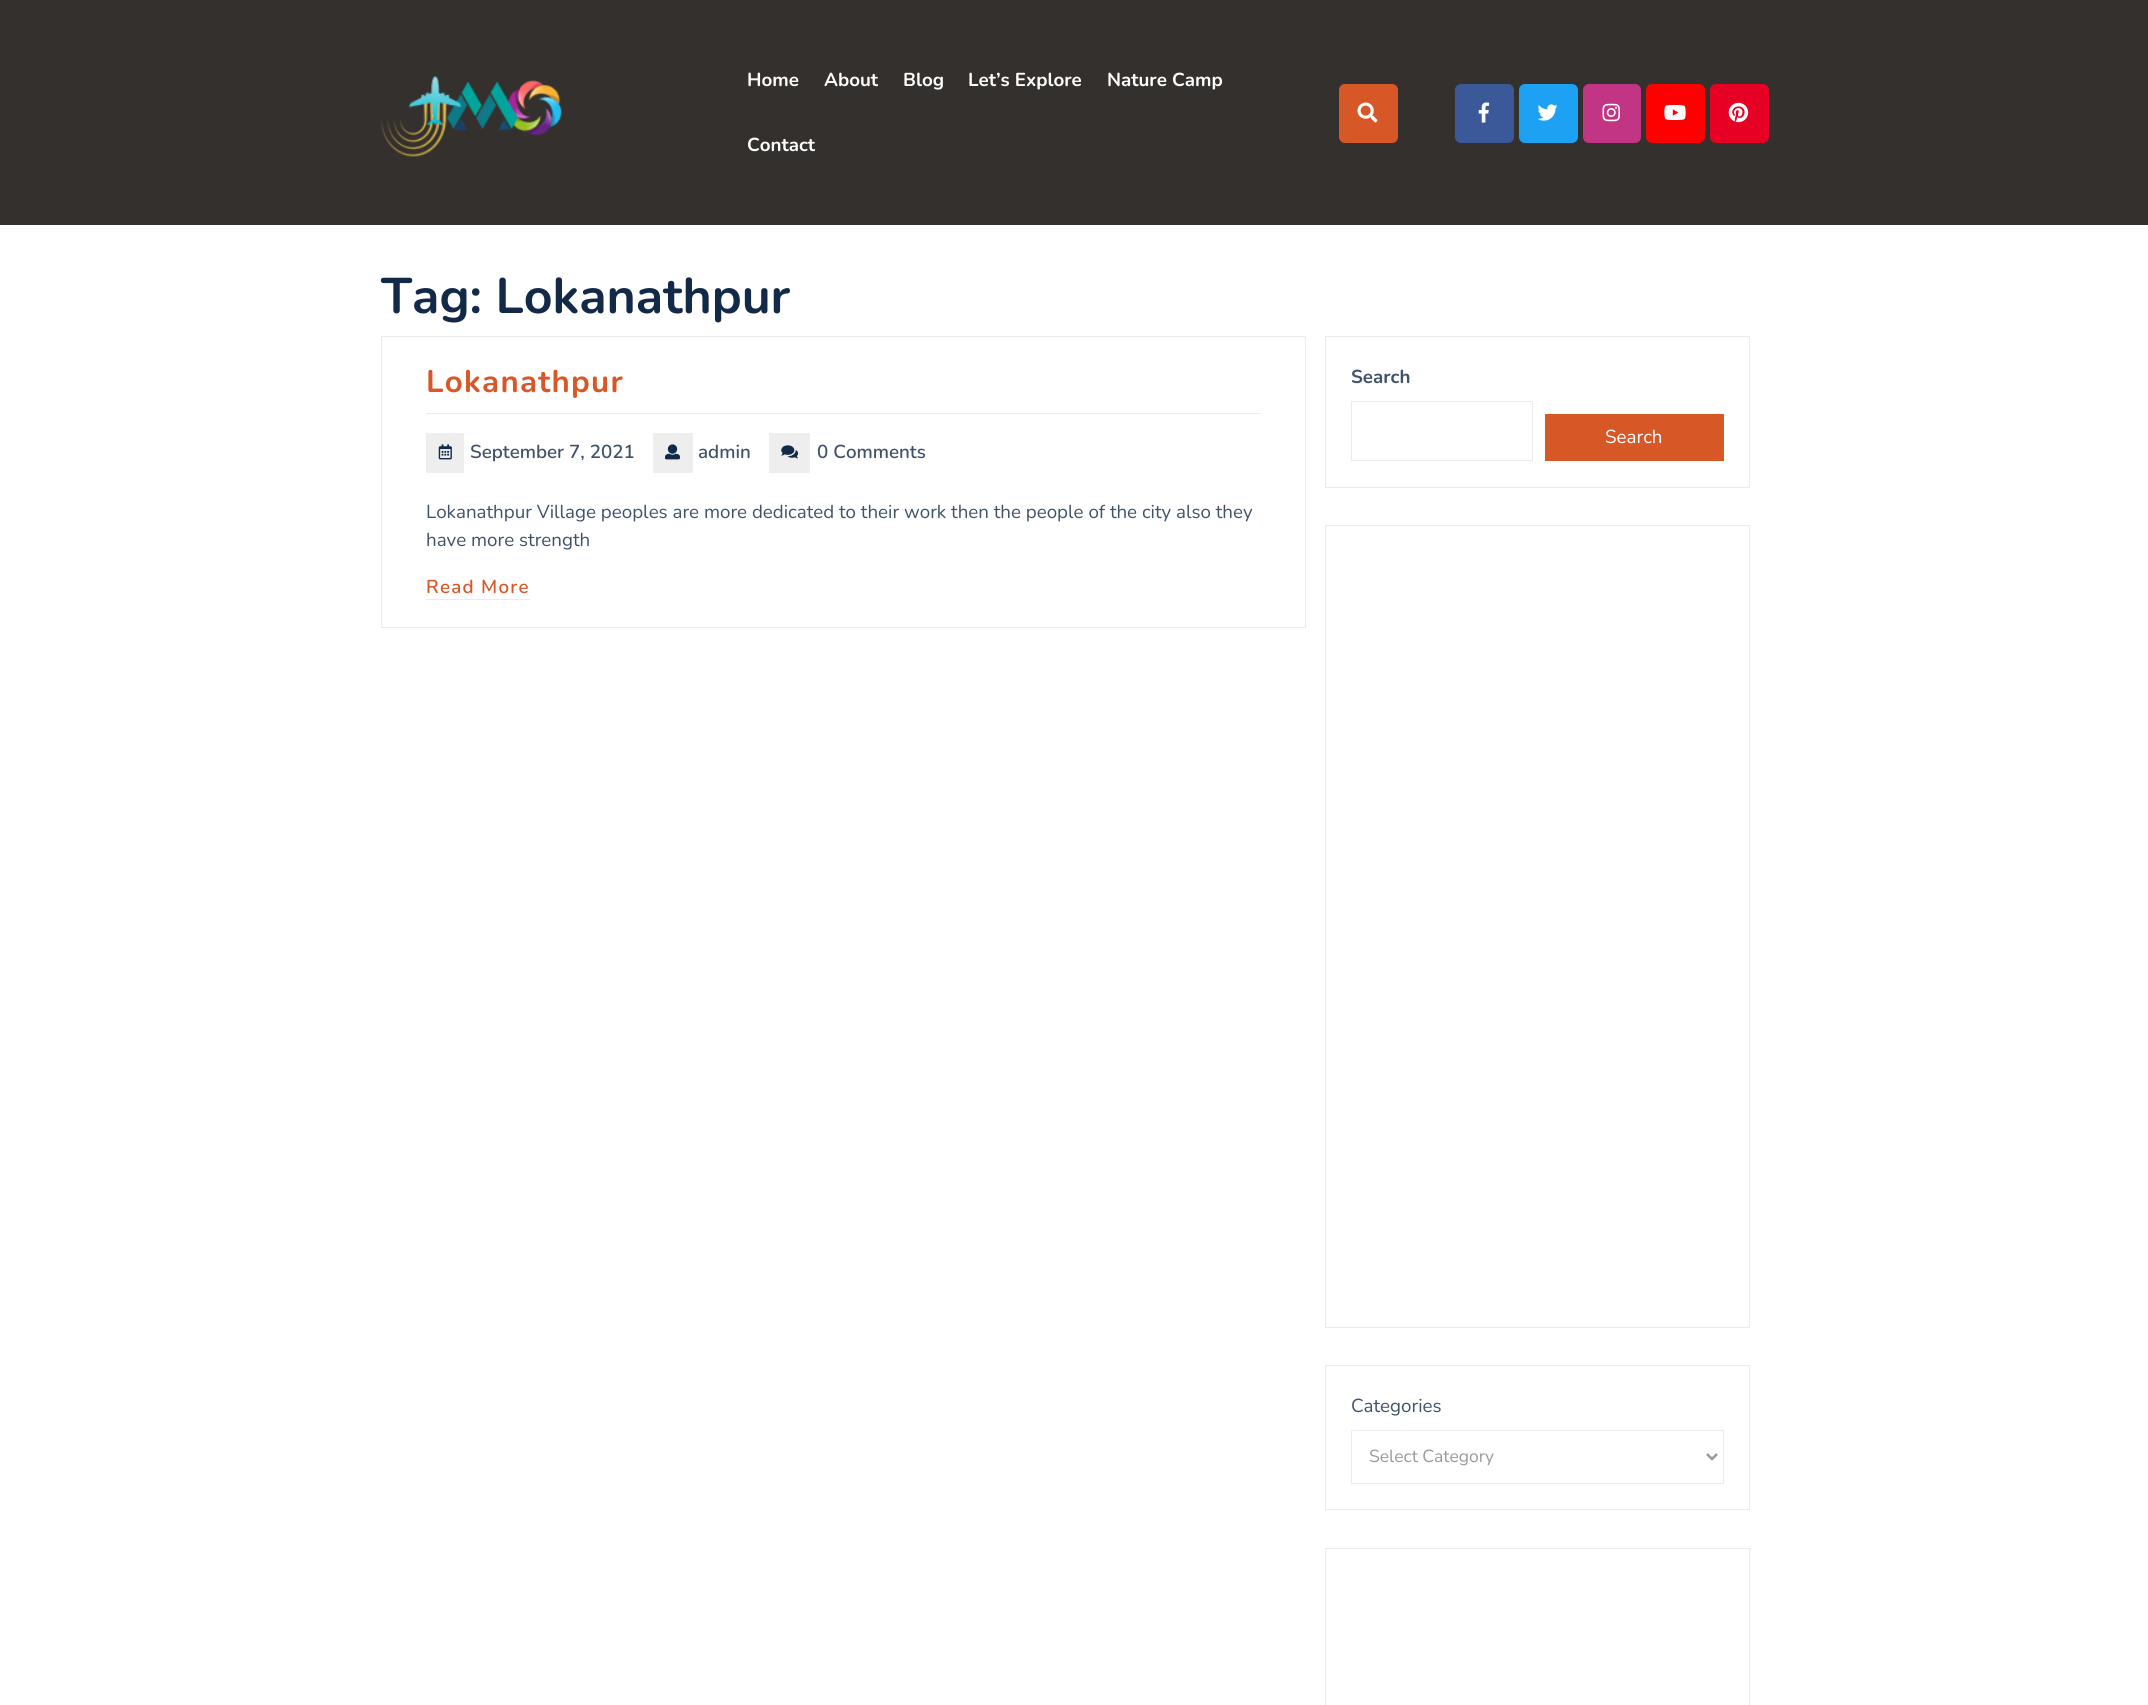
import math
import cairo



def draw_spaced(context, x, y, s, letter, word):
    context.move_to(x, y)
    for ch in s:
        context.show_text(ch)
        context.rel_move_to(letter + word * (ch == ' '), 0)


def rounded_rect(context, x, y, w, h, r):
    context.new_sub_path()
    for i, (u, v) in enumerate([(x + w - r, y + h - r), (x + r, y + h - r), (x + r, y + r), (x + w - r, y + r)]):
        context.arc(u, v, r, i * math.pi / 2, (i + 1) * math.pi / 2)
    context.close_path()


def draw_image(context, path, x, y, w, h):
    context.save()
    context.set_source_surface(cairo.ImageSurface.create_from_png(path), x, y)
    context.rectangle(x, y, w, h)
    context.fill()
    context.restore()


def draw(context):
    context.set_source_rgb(1, 1, 1)
    context.paint()
    context.set_source_rgb(51 / 255, 48 / 255, 45 / 255)
    context.rectangle(0, 0, 2148, 225)
    context.fill()
    draw_image(context, "images/1.png", 381, 76, 181, 81)
    context.set_source_rgb(216 / 255, 87 / 255, 38 / 255)
    rounded_rect(context, 1339, 84, 59, 59, 6)
    context.fill()
    draw_image(context, "images/2.png", 1357, 102, 21, 21)
    context.set_source_rgb(59 / 255, 89 / 255, 152 / 255)
    rounded_rect(context, 1455, 84, 59, 59, 6)
    context.fill()
    draw_image(context, "images/3.png", 1478, 102, 12, 21)
    context.set_source_rgb(29 / 255, 161 / 255, 242 / 255)
    rounded_rect(context, 1519, 84, 59, 59, 6)
    context.fill()
    draw_image(context, "images/4.png", 1537, 104, 21, 17)
    context.set_source_rgb(193 / 255, 53 / 255, 132 / 255)
    rounded_rect(context, 1583, 84, 58, 59, 6)
    context.fill()
    draw_image(context, "images/5.png", 1602, 103, 18, 19)
    context.set_source_rgb(1, 0, 0)
    rounded_rect(context, 1646, 84, 59, 59, 6)
    context.fill()
    draw_image(context, "images/6.png", 1664, 105, 22, 15)
    context.set_source_rgb(230 / 255, 0, 35 / 255)
    rounded_rect(context, 1710, 84, 59, 59, 6)
    context.fill()
    draw_image(context, "images/7.png", 1728, 102, 21, 21)
    context.rectangle(381.5, 336.5, 924, 291)
    context.set_source_rgb(235 / 255, 235 / 255, 235 / 255)
    context.set_line_width(1)
    context.stroke()
    context.rectangle(426, 413, 835, 1)
    context.fill()
    context.set_source_rgb(238 / 255, 238 / 255, 238 / 255)
    context.rectangle(426, 433, 38, 40)
    context.fill()
    draw_image(context, "images/8.png", 438, 444, 14, 16)
    context.rectangle(653, 433, 40, 40)
    context.fill()
    draw_image(context, "images/9.png", 665, 444, 15, 16)
    context.rectangle(769, 433, 41, 40)
    context.fill()
    draw_image(context, "images/10.png", 781, 445, 18, 14)
    context.set_source_rgb(235 / 255, 235 / 255, 235 / 255)
    context.rectangle(426, 599, 104, 1)
    context.fill()
    context.rectangle(1325.5, 336.5, 424, 151)
    context.stroke()
    context.rectangle(1351.5, 401.5, 181, 59)
    context.stroke()
    context.set_source_rgb(216 / 255, 87 / 255, 38 / 255)
    context.rectangle(1545, 414, 179, 47)
    context.fill()
    context.rectangle(1325.5, 525.5, 424, 802)
    context.set_source_rgb(235 / 255, 235 / 255, 235 / 255)
    context.stroke()
    context.rectangle(1325.5, 1365.5, 424, 144)
    context.stroke()
    context.rectangle(1351.5, 1430.5, 372, 53)
    context.stroke()
    context.new_path()
    context.move_to(1707, 1454)
    context.line_to(1712, 1459)
    context.line_to(1717, 1454)
    context.set_source_rgb(153 / 255, 153 / 255, 153 / 255)
    context.set_line_width(2.5)
    context.stroke()
    context.rectangle(1325.5, 1548.5, 424, 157)
    context.set_source_rgb(235 / 255, 235 / 255, 235 / 255)
    context.set_line_width(1)
    context.stroke()
    context.select_font_face("Nunito", cairo.FontSlant.NORMAL, cairo.FontWeight.BOLD)
    context.set_font_size(18.75)
    context.set_source_rgb(1, 1, 1)
    context.move_to(747, 86)
    context.show_text("Home")
    context.move_to(824, 86)
    context.show_text("About")
    context.move_to(903, 86)
    context.show_text("Blog")
    context.move_to(968, 86)
    context.show_text("Let’s Explore")
    context.move_to(1107, 86)
    context.show_text("Nature Camp")
    context.move_to(747, 151)
    context.show_text("Contact")
    context.set_font_size(50)
    context.set_source_rgb(18 / 255, 41 / 255, 71 / 255)
    context.move_to(381, 313)
    context.show_text("Tag: Lokanathpur")
    context.set_font_size(31.25)
    context.set_source_rgb(216 / 255, 87 / 255, 38 / 255)
    draw_spaced(context, 426, 392, "Lokanathpur", 1.25, 0)
    context.select_font_face("Nunito SemiBold")
    context.set_font_size(18.75)
    context.set_source_rgb(64 / 255, 82 / 255, 106 / 255)
    context.move_to(470, 458)
    context.show_text("September 7, 2021")
    context.move_to(698, 458)
    context.show_text("admin")
    context.move_to(817, 458)
    context.show_text("0 Comments")
    context.select_font_face("Nunito")
    context.move_to(426, 518)
    context.show_text("Lokanathpur Village peoples are more dedicated to their work then the people of the city also they")
    context.move_to(426, 546)
    context.show_text("have more strength")
    context.select_font_face("Nunito SemiBold")
    context.set_source_rgb(216 / 255, 87 / 255, 38 / 255)
    draw_spaced(context, 426, 593, "Read More", 1.25, 0)
    context.select_font_face("Nunito", cairo.FontSlant.NORMAL, cairo.FontWeight.BOLD)
    context.set_source_rgb(64 / 255, 82 / 255, 106 / 255)
    context.move_to(1351, 383)
    context.show_text("Search")
    context.select_font_face("Nunito")
    context.set_source_rgb(1, 1, 1)
    context.move_to(1605, 443)
    context.show_text("Search")
    context.set_source_rgb(64 / 255, 82 / 255, 106 / 255)
    context.move_to(1351, 1412)
    context.show_text("Categories")
    context.set_font_size(17.5)
    context.set_source_rgb(153 / 255, 153 / 255, 153 / 255)
    context.move_to(1369, 1462)
    context.show_text("Select Category")


surface = cairo.ImageSurface(cairo.Format.RGB24, 2148, 1705)
context = cairo.Context(surface)
options = cairo.FontOptions()
options.set_hint_metrics(cairo.HintMetrics.OFF)
options.set_hint_style(cairo.HintStyle.NONE)
context.set_font_options(options)
context.set_miter_limit(4)
draw(context)
surface.write_to_png("out.png")
